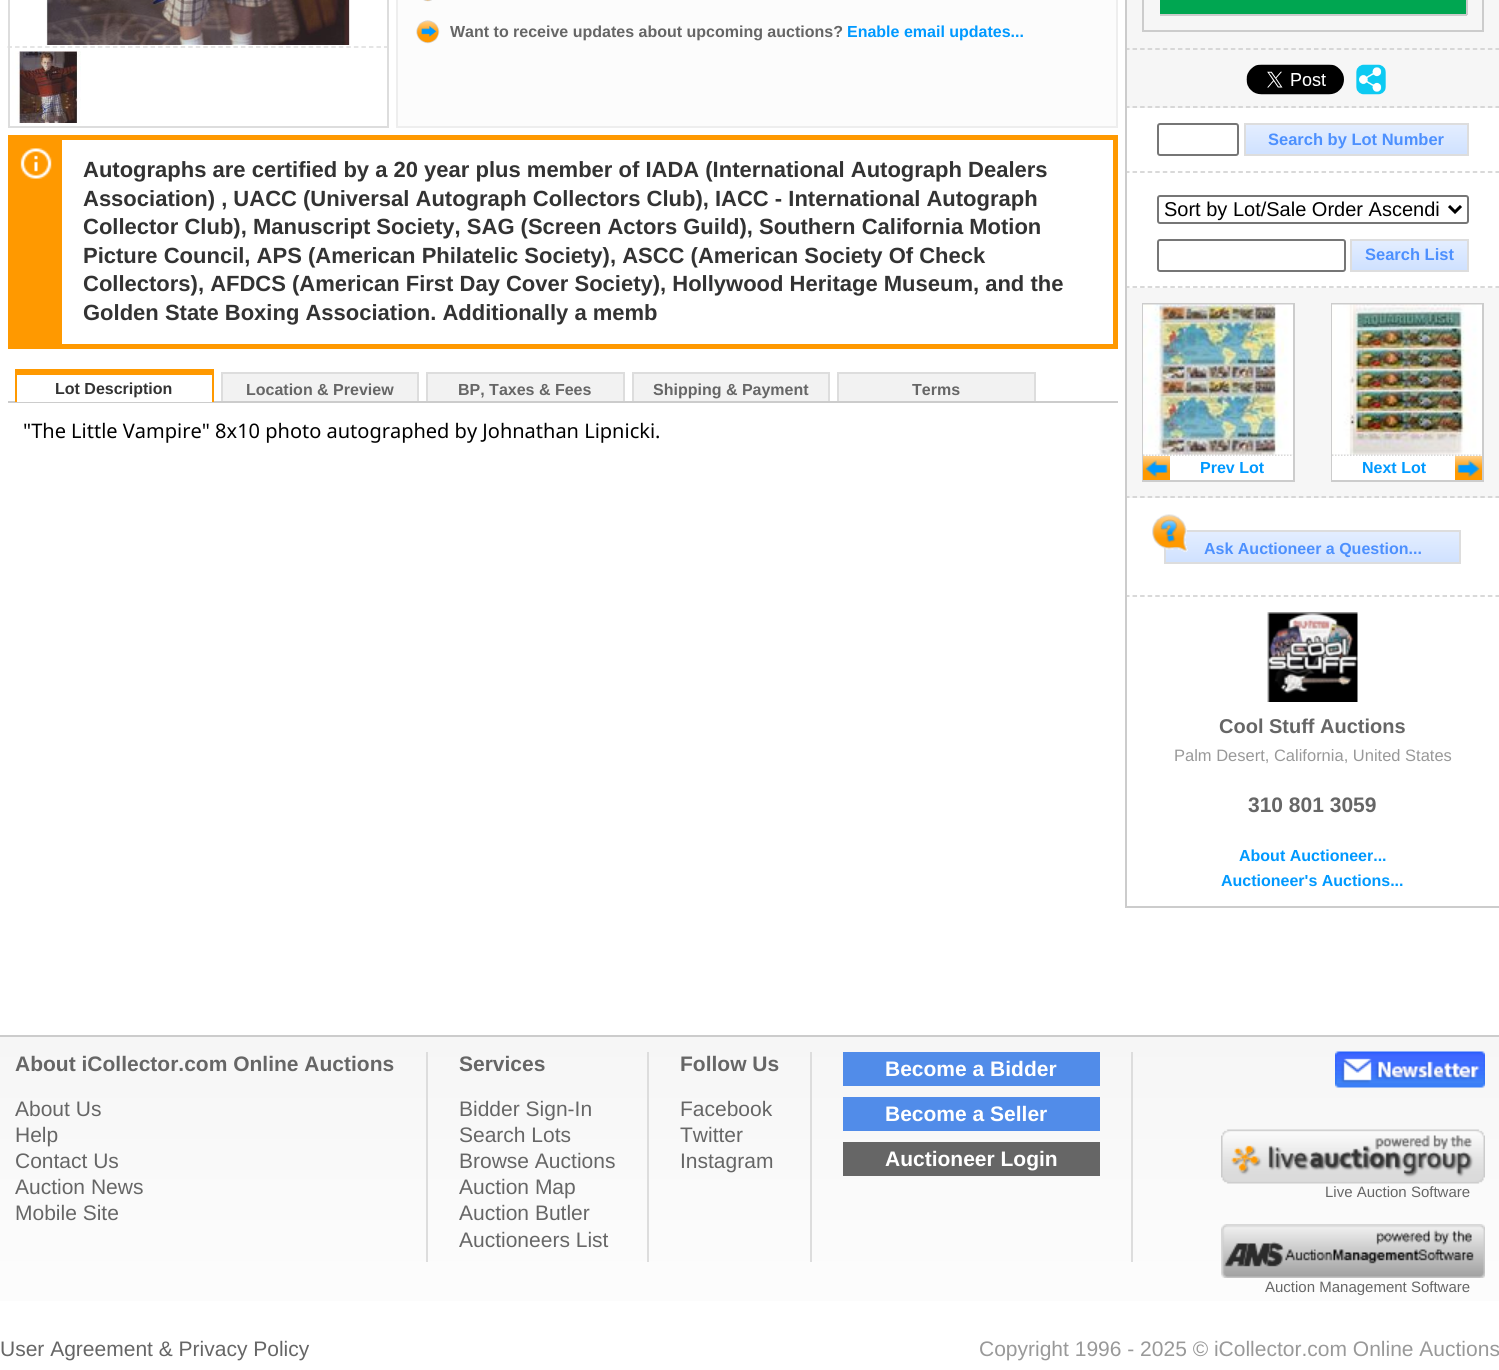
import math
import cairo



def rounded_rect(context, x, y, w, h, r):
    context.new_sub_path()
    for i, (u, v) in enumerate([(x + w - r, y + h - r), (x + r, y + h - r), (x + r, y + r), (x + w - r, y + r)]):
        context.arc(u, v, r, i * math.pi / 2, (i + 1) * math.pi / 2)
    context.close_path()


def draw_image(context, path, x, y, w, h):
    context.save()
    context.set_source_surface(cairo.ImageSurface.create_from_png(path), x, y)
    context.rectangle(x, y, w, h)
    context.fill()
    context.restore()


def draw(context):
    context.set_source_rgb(1, 1, 1)
    context.paint()
    context.set_source_rgb(221 / 255, 221 / 255, 221 / 255)
    context.rectangle(387, 0, 2, 47)
    context.fill()
    context.rectangle(8, 0, 2, 47)
    context.fill()
    draw_image(context, "images/1.png", 46, 0, 304, 45)
    context.new_path()
    context.move_to(7.5, 47)
    context.line_to(388.5, 47)
    context.set_line_width(1.5)
    context.set_dash([4.5, 3.03])
    context.stroke()
    context.rectangle(387, 47, 2, 81)
    context.fill()
    context.rectangle(8, 126, 381, 2)
    context.fill()
    context.rectangle(8, 47, 2, 81)
    context.fill()
    draw_image(context, "images/2.png", 12, 51, 69, 72)
    context.set_source_rgb(252 / 255, 252 / 255, 252 / 255)
    context.rectangle(397, -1, 720, 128)
    context.fill_preserve()
    context.set_source_rgb(238 / 255, 238 / 255, 238 / 255)
    context.set_line_width(2)
    context.set_dash([])
    context.stroke()
    draw_image(context, "images/3.png", 423, 0, 9, 2)
    draw_image(context, "images/4.png", 416, 20, 24, 24)
    context.set_source_rgb(1, 153 / 255, 0)
    context.rectangle(62, 135, 1056, 5)
    context.fill()
    context.rectangle(1113, 135, 5, 213)
    context.fill()
    context.rectangle(8, 344, 1110, 5)
    context.fill()
    context.rectangle(8, 135, 54, 209)
    context.fill()
    draw_image(context, "images/5.png", 20, 148, 32, 31)
    context.set_source_rgb(204 / 255, 204 / 255, 204 / 255)
    context.rectangle(8, 401, 1110, 2)
    context.fill()
    context.set_source_rgb(1, 1, 1)
    context.rectangle(17, 401, 195, 1)
    context.fill()
    context.set_source_rgb(1, 153 / 255, 0)
    context.rectangle(15, 369, 198, 6)
    context.fill()
    context.rectangle(212, 369, 2, 33)
    context.fill()
    context.rectangle(15, 369, 2, 33)
    context.fill()
    context.set_source_rgb(242 / 255, 242 / 255, 242 / 255)
    context.rectangle(223, 374, 194, 27)
    context.fill()
    context.set_source_rgb(221 / 255, 221 / 255, 221 / 255)
    context.rectangle(221, 372, 198, 2)
    context.fill()
    context.rectangle(417, 372, 2, 29)
    context.fill()
    context.rectangle(221, 372, 2, 29)
    context.fill()
    context.set_source_rgb(242 / 255, 242 / 255, 242 / 255)
    context.rectangle(428, 374, 195, 27)
    context.fill()
    context.set_source_rgb(221 / 255, 221 / 255, 221 / 255)
    context.rectangle(426, 372, 198, 2)
    context.fill()
    context.rectangle(623, 372, 2, 29)
    context.fill()
    context.rectangle(426, 372, 2, 29)
    context.fill()
    context.set_source_rgb(242 / 255, 242 / 255, 242 / 255)
    context.rectangle(634, 374, 194, 27)
    context.fill()
    context.set_source_rgb(221 / 255, 221 / 255, 221 / 255)
    context.rectangle(632, 372, 198, 2)
    context.fill()
    context.rectangle(828, 372, 2, 29)
    context.fill()
    context.rectangle(632, 372, 2, 29)
    context.fill()
    context.set_source_rgb(242 / 255, 242 / 255, 242 / 255)
    context.rectangle(839, 374, 195, 27)
    context.fill()
    context.set_source_rgb(221 / 255, 221 / 255, 221 / 255)
    context.rectangle(837, 372, 198, 2)
    context.fill()
    context.rectangle(1034, 372, 2, 29)
    context.fill()
    context.rectangle(837, 372, 2, 29)
    context.fill()
    context.set_source_rgb(246 / 255, 246 / 255, 246 / 255)
    context.rectangle(1127, 0, 372, 108)
    context.fill()
    context.new_path()
    context.move_to(1125, 49)
    context.line_to(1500, 49)
    context.set_source_rgb(204 / 255, 204 / 255, 204 / 255)
    context.set_line_width(1.5)
    context.set_dash([4.5, 3.06])
    context.stroke()
    context.rectangle(1125, 0, 2, 50)
    context.fill()
    context.rectangle(1143, -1, 340, 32)
    context.set_line_width(2)
    context.set_dash([])
    context.stroke()
    context.set_source_rgb(0, 166 / 255, 81 / 255)
    context.rectangle(1160, 0, 306, 14)
    context.fill()
    context.set_source_rgb(204 / 255, 204 / 255, 204 / 255)
    context.rectangle(1466, 0, 2, 15)
    context.fill()
    context.rectangle(1160, 14, 307, 2)
    context.fill()
    context.new_path()
    context.move_to(1125, 107)
    context.line_to(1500, 107)
    context.set_line_width(1.5)
    context.set_dash([4.5, 3.06])
    context.stroke()
    context.rectangle(1125, 50, 2, 58)
    context.fill()
    draw_image(context, "images/6.png", 1246, 64, 98, 31)
    draw_image(context, "images/7.png", 1356, 64, 30, 31)
    context.new_path()
    context.move_to(1125, 172)
    context.line_to(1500, 172)
    context.stroke()
    context.rectangle(1125, 108, 2, 65)
    context.fill()
    rounded_rect(context, 1158, 124, 80, 31, 2)
    context.set_source_rgb(118 / 255, 118 / 255, 118 / 255)
    context.set_line_width(2)
    context.set_dash([])
    context.stroke()
    gradient = cairo.LinearGradient(1356, 124, 1356, 155)
    gradient.add_color_stop_rgba(0, 228 / 255, 238 / 255, 1, 1)
    gradient.add_color_stop_rgba(1, 207 / 255, 225 / 255, 1, 1)
    context.set_source(gradient)
    context.rectangle(1246, 125, 221, 29)
    context.fill()
    context.rectangle(1245, 124, 223, 31)
    context.set_source_rgb(221 / 255, 221 / 255, 221 / 255)
    context.stroke()
    context.new_path()
    context.move_to(1125, 287)
    context.line_to(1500, 287)
    context.set_source_rgb(204 / 255, 204 / 255, 204 / 255)
    context.set_line_width(1.5)
    context.set_dash([4.5, 3.06])
    context.stroke()
    context.rectangle(1125, 173, 2, 115)
    context.fill()
    rounded_rect(context, 1158, 196, 310, 27, 2)
    context.set_source_rgb(118 / 255, 118 / 255, 118 / 255)
    context.set_line_width(2)
    context.set_dash([])
    context.stroke()
    context.new_path()
    context.move_to(1449, 206)
    context.line_to(1455, 212)
    context.line_to(1461, 206)
    context.set_source_rgb(0, 0, 0)
    context.set_line_width(3)
    context.stroke()
    rounded_rect(context, 1158, 240, 187, 31, 2)
    context.set_source_rgb(118 / 255, 118 / 255, 118 / 255)
    context.set_line_width(2)
    context.stroke()
    gradient = cairo.LinearGradient(1409, 240, 1409, 270)
    gradient.add_color_stop_rgba(0, 228 / 255, 238 / 255, 1, 1)
    gradient.add_color_stop_rgba(1, 207 / 255, 225 / 255, 1, 1)
    context.set_source(gradient)
    context.rectangle(1352, 241, 115, 29)
    context.fill()
    context.rectangle(1351, 240, 117, 31)
    context.set_source_rgb(221 / 255, 221 / 255, 221 / 255)
    context.stroke()
    context.set_source_rgb(246 / 255, 246 / 255, 246 / 255)
    context.rectangle(1127, 288, 372, 210)
    context.fill()
    context.new_path()
    context.move_to(1125, 497)
    context.line_to(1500, 497)
    context.set_source_rgb(204 / 255, 204 / 255, 204 / 255)
    context.set_line_width(1.5)
    context.set_dash([4.5, 3.06])
    context.stroke()
    context.rectangle(1125, 288, 2, 210)
    context.fill()
    context.rectangle(1143, 304, 151, 177)
    context.set_line_width(2)
    context.set_dash([])
    context.stroke()
    context.set_source_rgb(1, 1, 1)
    context.rectangle(1143, 455, 150, 25)
    context.fill()
    context.new_path()
    context.move_to(1143, 455)
    context.line_to(1293, 455)
    context.set_source_rgb(204 / 255, 204 / 255, 204 / 255)
    context.set_line_width(1.5)
    context.set_dash([1.5, 1.5])
    context.stroke()
    draw_image(context, "images/8.png", 1143, 304, 150, 151)
    draw_image(context, "images/9.png", 1143, 456, 27, 24)
    context.rectangle(1332, 304, 151, 177)
    context.set_line_width(2)
    context.set_dash([])
    context.stroke()
    context.set_source_rgb(1, 1, 1)
    context.rectangle(1332, 455, 150, 25)
    context.fill()
    context.new_path()
    context.move_to(1332, 455)
    context.line_to(1482, 455)
    context.set_source_rgb(204 / 255, 204 / 255, 204 / 255)
    context.set_line_width(1.5)
    context.set_dash([1.5, 1.5])
    context.stroke()
    draw_image(context, "images/10.png", 1332, 304, 150, 151)
    draw_image(context, "images/11.png", 1455, 456, 27, 24)
    context.new_path()
    context.move_to(1125, 596)
    context.line_to(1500, 596)
    context.set_dash([4.5, 3.06])
    context.stroke()
    context.rectangle(1125, 498, 2, 99)
    context.fill()
    gradient = cairo.LinearGradient(1313, 531, 1313, 563)
    gradient.add_color_stop_rgba(0, 228 / 255, 238 / 255, 1, 1)
    gradient.add_color_stop_rgba(1, 207 / 255, 225 / 255, 1, 1)
    context.set_source(gradient)
    context.rectangle(1166, 532, 293, 30)
    context.fill()
    context.rectangle(1165, 531, 295, 32)
    context.set_source_rgb(221 / 255, 221 / 255, 221 / 255)
    context.set_line_width(2)
    context.set_dash([])
    context.stroke()
    draw_image(context, "images/12.png", 1152, 514, 36, 38)
    context.set_source_rgb(204 / 255, 204 / 255, 204 / 255)
    context.rectangle(1125, 906, 374, 2)
    context.fill()
    context.rectangle(1125, 597, 2, 311)
    context.fill()
    draw_image(context, "images/13.png", 1267, 612, 91, 90)
    gradient = cairo.LinearGradient(750, 1037, 750, 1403)
    gradient.add_color_stop_rgba(0, 246 / 255, 246 / 255, 246 / 255, 1)
    gradient.add_color_stop_rgba(1, 1, 1, 1, 1)
    context.set_source(gradient)
    context.rectangle(0, 1037, 1499, 264)
    context.fill()
    context.set_source_rgb(204 / 255, 204 / 255, 204 / 255)
    context.rectangle(0, 1035, 1499, 2)
    context.fill()
    context.set_source_rgb(221 / 255, 221 / 255, 221 / 255)
    context.rectangle(426, 1052, 2, 210)
    context.fill()
    context.rectangle(647, 1052, 2, 210)
    context.fill()
    context.rectangle(810, 1052, 2, 210)
    context.fill()
    context.rectangle(1131, 1052, 2, 210)
    context.fill()
    context.set_source_rgb(81 / 255, 140 / 255, 233 / 255)
    context.rectangle(843, 1052, 257, 34)
    context.fill()
    context.rectangle(843, 1097, 257, 34)
    context.fill()
    context.set_source_rgb(102 / 255, 102 / 255, 102 / 255)
    context.rectangle(843, 1142, 257, 34)
    context.fill()
    draw_image(context, "images/14.png", 1335, 1051, 150, 37)
    draw_image(context, "images/15.png", 1221, 1129, 264, 55)
    draw_image(context, "images/16.png", 1221, 1224, 264, 54)
    context.select_font_face("Liberation Sans", cairo.FontSlant.NORMAL, cairo.FontWeight.BOLD)
    context.set_font_size(16)
    context.move_to(450, 37)
    context.show_text("Want to receive updates about upcoming auctions?")
    context.set_source_rgb(0, 153 / 255, 1)
    context.move_to(847, 37)
    context.show_text("Enable email updates...")
    context.set_font_size(22)
    context.set_source_rgb(51 / 255, 51 / 255, 51 / 255)
    context.move_to(83, 177)
    context.show_text("Autographs are certified by a 20 year plus member of IADA (International Autograph Dealers")
    context.move_to(83, 206)
    context.show_text("Association) , UACC (Universal Autograph Collectors Club), IACC - International Autograph")
    context.move_to(83, 234)
    context.show_text("Collector Club), Manuscript Society, SAG (Screen Actors Guild), Southern California Motion")
    context.move_to(83, 263)
    context.show_text("Picture Council, APS (American Philatelic Society), ASCC (American Society Of Check")
    context.move_to(83, 291)
    context.show_text("Collectors), AFDCS (American First Day Cover Society), Hollywood Heritage Museum, and the")
    context.move_to(83, 320)
    context.show_text("Golden State Boxing Association. Additionally a memb")
    context.set_font_size(16)
    context.move_to(55, 394)
    context.show_text("Lot Description")
    context.set_source_rgb(102 / 255, 102 / 255, 102 / 255)
    context.move_to(246, 395)
    context.show_text("Location & Preview")
    context.move_to(458, 395)
    context.show_text("BP, Taxes & Fees")
    context.move_to(653, 395)
    context.show_text("Shipping & Payment")
    context.move_to(912, 395)
    context.show_text("Terms")
    context.select_font_face("Noto Sans")
    context.set_font_size(20)
    context.set_source_rgb(0, 0, 0)
    context.move_to(23, 438)
    context.show_text("\"The Little Vampire\" 8x10 photo autographed by Johnathan Lipnicki.")
    context.select_font_face("Liberation Sans", cairo.FontSlant.NORMAL, cairo.FontWeight.BOLD)
    context.set_font_size(16.5)
    context.set_source_rgb(77 / 255, 144 / 255, 254 / 255)
    context.move_to(1268, 145)
    context.show_text("Search by Lot Number")
    context.select_font_face("Liberation Sans")
    context.set_font_size(20)
    context.set_source_rgb(0, 0, 0)
    context.move_to(1164, 216)
    context.show_text("Sort by Lot/Sale Order Ascendi")
    context.select_font_face("Liberation Sans", cairo.FontSlant.NORMAL, cairo.FontWeight.BOLD)
    context.set_font_size(16.5)
    context.set_source_rgb(77 / 255, 144 / 255, 254 / 255)
    context.move_to(1365, 260)
    context.show_text("Search List")
    context.set_font_size(16)
    context.set_source_rgb(0, 153 / 255, 1)
    context.move_to(1200, 473)
    context.show_text("Prev Lot")
    context.move_to(1362, 473)
    context.show_text("Next Lot")
    context.set_source_rgb(77 / 255, 144 / 255, 254 / 255)
    context.move_to(1204, 554)
    context.show_text("Ask Auctioneer a Question...")
    context.set_font_size(20)
    context.set_source_rgb(102 / 255, 102 / 255, 102 / 255)
    context.move_to(1219, 733)
    context.show_text("Cool Stuff Auctions")
    context.select_font_face("Liberation Sans")
    context.set_font_size(16.5)
    context.set_source_rgb(153 / 255, 153 / 255, 153 / 255)
    context.move_to(1174, 761)
    context.show_text("Palm Desert, California, United States")
    context.select_font_face("Liberation Sans", cairo.FontSlant.NORMAL, cairo.FontWeight.BOLD)
    context.set_font_size(21)
    context.set_source_rgb(102 / 255, 102 / 255, 102 / 255)
    context.move_to(1248, 812)
    context.show_text("310 801 3059")
    context.set_font_size(16)
    context.set_source_rgb(0, 153 / 255, 1)
    context.move_to(1239, 861)
    context.show_text("About Auctioneer...")
    context.move_to(1221, 886)
    context.show_text("Auctioneer's Auctions...")
    context.set_font_size(21)
    context.set_source_rgb(102 / 255, 102 / 255, 102 / 255)
    context.move_to(15, 1071)
    context.show_text("About iCollector.com Online Auctions")
    context.select_font_face("Liberation Sans")
    context.move_to(15, 1116)
    context.show_text("About Us")
    context.move_to(15, 1142)
    context.show_text("Help")
    context.move_to(15, 1168)
    context.show_text("Contact Us")
    context.move_to(15, 1194)
    context.show_text("Auction News")
    context.move_to(15, 1220)
    context.show_text("Mobile Site")
    context.select_font_face("Liberation Sans", cairo.FontSlant.NORMAL, cairo.FontWeight.BOLD)
    context.move_to(459, 1071)
    context.show_text("Services")
    context.select_font_face("Liberation Sans")
    context.move_to(459, 1116)
    context.show_text("Bidder Sign-In")
    context.move_to(459, 1142)
    context.show_text("Search Lots")
    context.move_to(459, 1168)
    context.show_text("Browse Auctions")
    context.move_to(459, 1194)
    context.show_text("Auction Map")
    context.move_to(459, 1220)
    context.show_text("Auction Butler")
    context.move_to(459, 1247)
    context.show_text("Auctioneers List")
    context.select_font_face("Liberation Sans", cairo.FontSlant.NORMAL, cairo.FontWeight.BOLD)
    context.move_to(680, 1071)
    context.show_text("Follow Us")
    context.select_font_face("Liberation Sans")
    context.move_to(680, 1116)
    context.show_text("Facebook")
    context.move_to(680, 1142)
    context.show_text("Twitter")
    context.move_to(680, 1168)
    context.show_text("Instagram")
    context.select_font_face("Liberation Sans", cairo.FontSlant.NORMAL, cairo.FontWeight.BOLD)
    context.set_source_rgb(1, 1, 1)
    context.move_to(885, 1076)
    context.show_text("Become a Bidder")
    context.move_to(885, 1121)
    context.show_text("Become a Seller")
    context.move_to(885, 1166)
    context.show_text("Auctioneer Login")
    context.select_font_face("Liberation Sans")
    context.set_font_size(15)
    context.set_source_rgb(102 / 255, 102 / 255, 102 / 255)
    context.move_to(1325, 1197)
    context.show_text("Live Auction Software")
    context.move_to(1265, 1292)
    context.show_text("Auction Management Software")
    context.set_font_size(21)
    context.move_to(0, 1356)
    context.show_text("User Agreement & Privacy Policy")
    context.set_source_rgb(153 / 255, 153 / 255, 153 / 255)
    context.move_to(979, 1356)
    context.show_text("Copyright 1996 - 2025 © iCollector.com Online Auctions")


surface = cairo.ImageSurface(cairo.Format.RGB24, 1499, 1370)
context = cairo.Context(surface)
options = cairo.FontOptions()
options.set_hint_metrics(cairo.HintMetrics.OFF)
options.set_hint_style(cairo.HintStyle.NONE)
context.set_font_options(options)
context.set_miter_limit(4)
draw(context)
surface.write_to_png("out.png")
